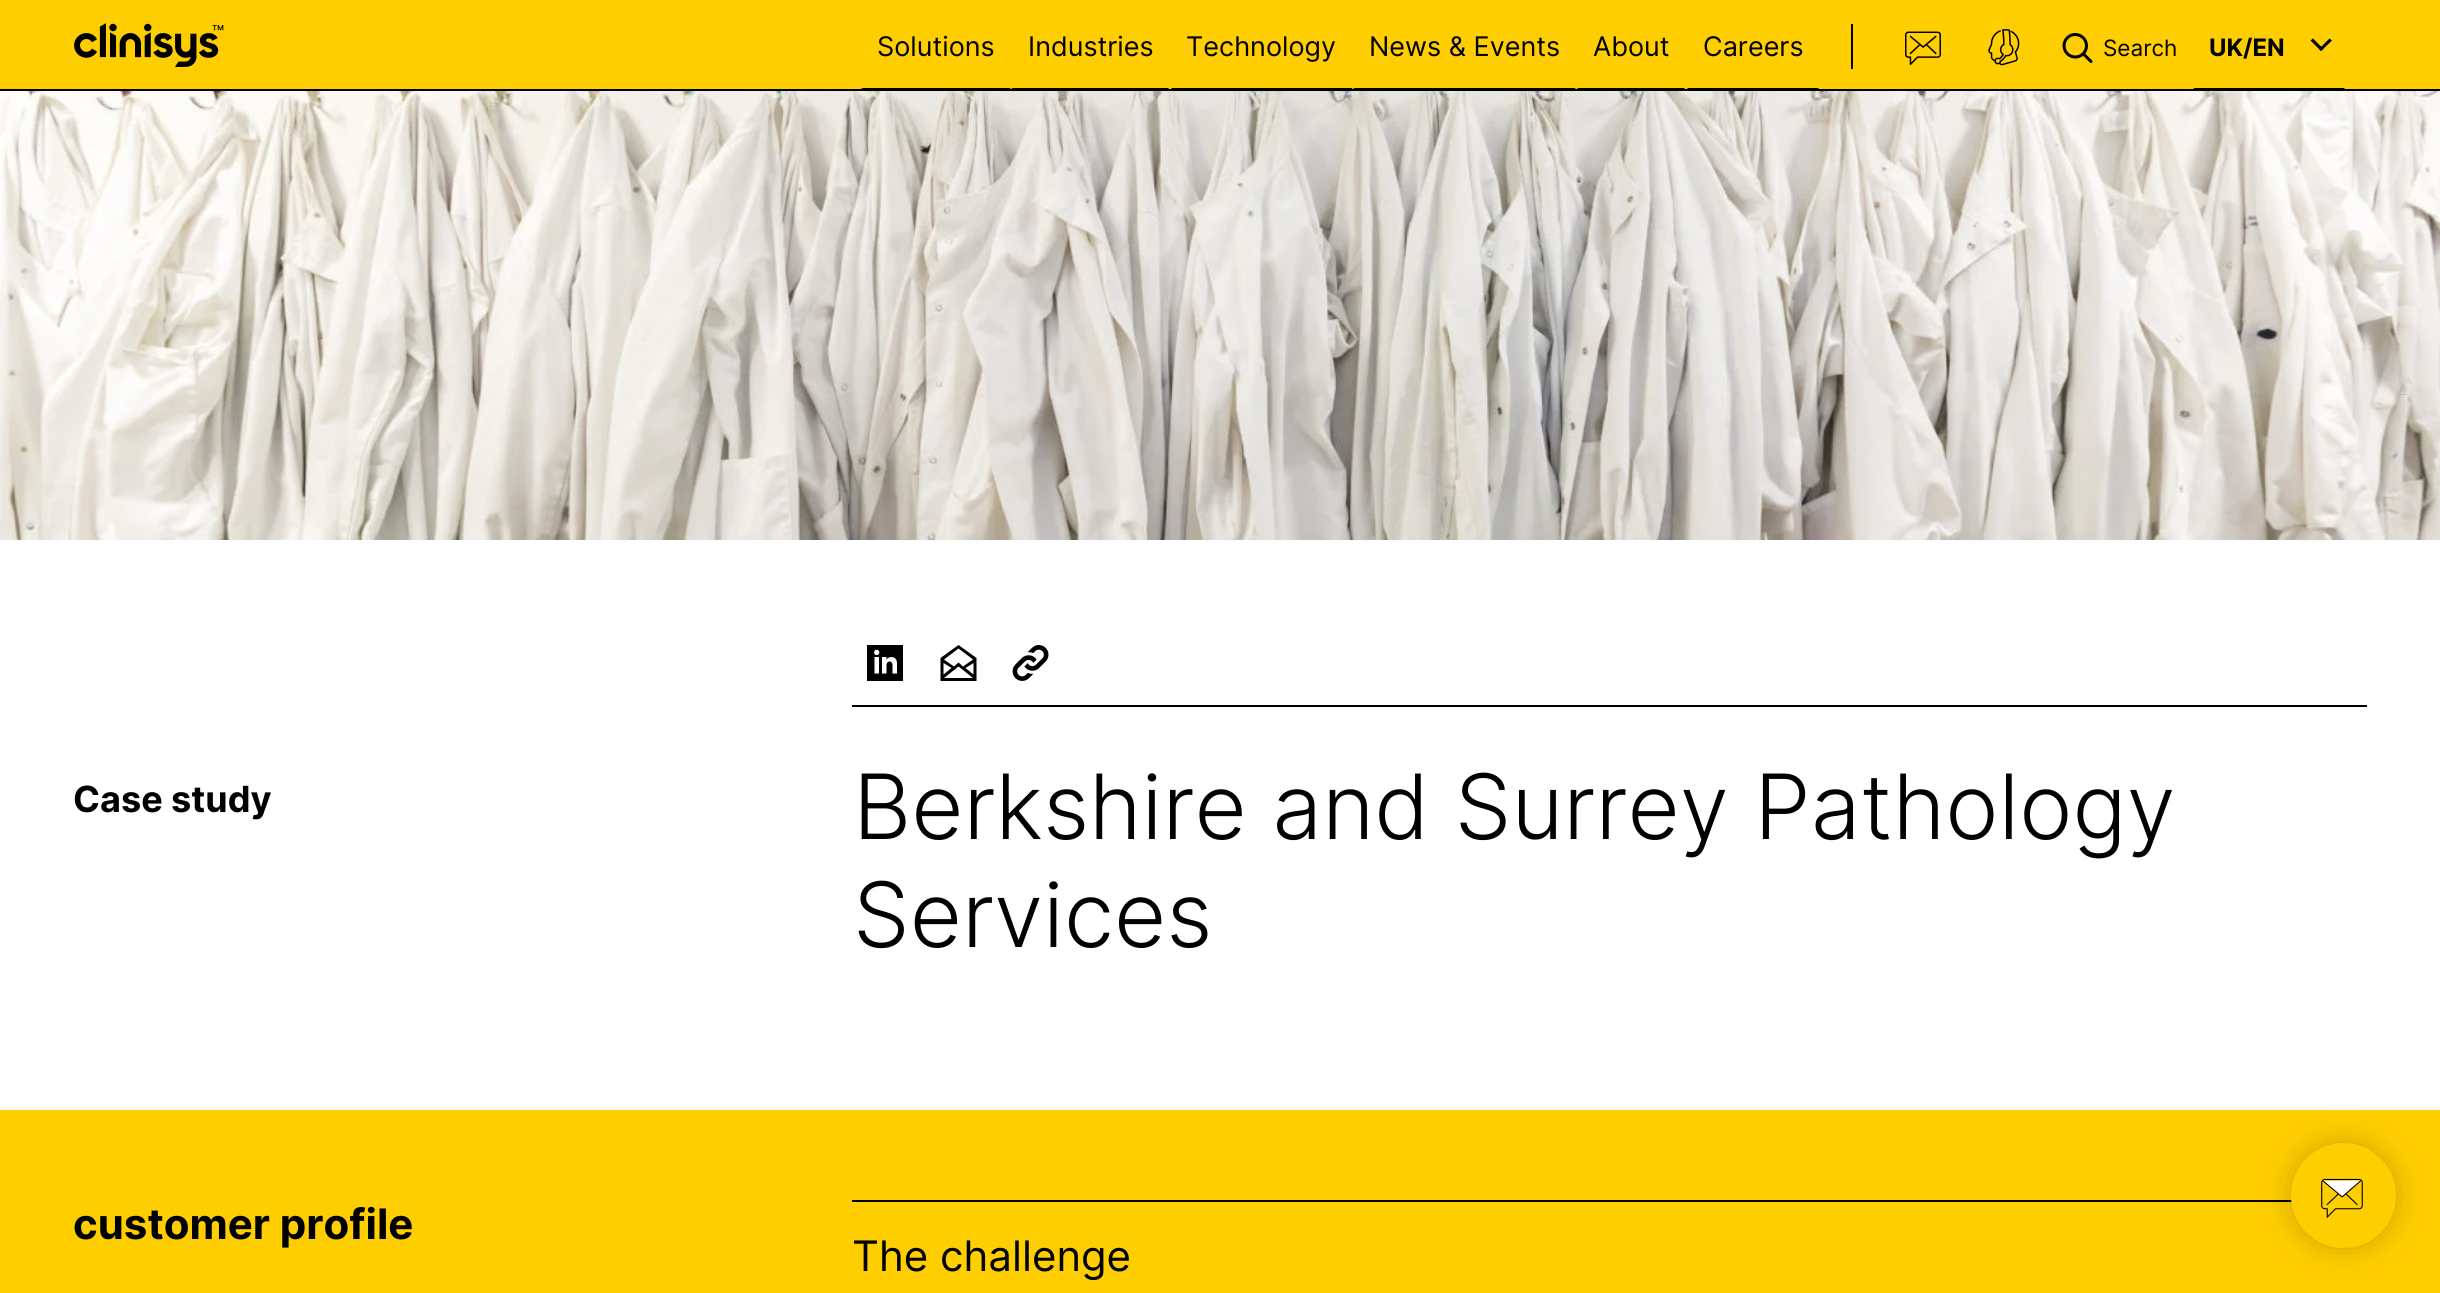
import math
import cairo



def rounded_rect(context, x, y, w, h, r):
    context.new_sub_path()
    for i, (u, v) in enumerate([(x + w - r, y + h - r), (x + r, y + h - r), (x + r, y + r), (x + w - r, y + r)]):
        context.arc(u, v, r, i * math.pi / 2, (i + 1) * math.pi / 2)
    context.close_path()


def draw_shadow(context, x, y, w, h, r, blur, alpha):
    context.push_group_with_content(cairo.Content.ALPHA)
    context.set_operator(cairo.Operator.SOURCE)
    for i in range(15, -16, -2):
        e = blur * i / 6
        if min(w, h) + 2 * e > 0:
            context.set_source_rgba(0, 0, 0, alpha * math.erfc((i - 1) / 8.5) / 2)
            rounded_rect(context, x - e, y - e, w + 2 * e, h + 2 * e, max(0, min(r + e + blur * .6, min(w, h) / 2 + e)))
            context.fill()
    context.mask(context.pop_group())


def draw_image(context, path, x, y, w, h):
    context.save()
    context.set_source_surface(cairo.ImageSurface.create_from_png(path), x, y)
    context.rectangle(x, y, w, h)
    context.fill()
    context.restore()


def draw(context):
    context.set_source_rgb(1, 1, 1)
    context.paint()
    context.set_source_rgb(1, 206 / 255, 0)
    context.rectangle(0, 0, 2440, 89)
    context.fill()
    context.set_source_rgb(0, 0, 0)
    context.rectangle(0, 89, 2440, 2)
    context.fill()
    draw_image(context, "images/1.png", 74, 23, 150, 44)
    context.new_path()
    context.move_to(1011, 90)
    context.line_to(861, 90)
    context.line_to(862, 88)
    context.line_to(1010, 88)
    context.close_path()
    context.fill()
    context.new_path()
    context.move_to(1170, 90)
    context.line_to(1011, 90)
    context.line_to(1012, 88)
    context.line_to(1168, 88)
    context.close_path()
    context.fill()
    context.new_path()
    context.move_to(1353, 90)
    context.line_to(1170, 90)
    context.line_to(1172, 88)
    context.line_to(1352, 88)
    context.close_path()
    context.fill()
    context.new_path()
    context.move_to(1576, 90)
    context.line_to(1353, 90)
    context.line_to(1354, 88)
    context.line_to(1575, 88)
    context.close_path()
    context.fill()
    context.new_path()
    context.move_to(1686, 90)
    context.line_to(1576, 90)
    context.line_to(1578, 88)
    context.line_to(1684, 88)
    context.close_path()
    context.fill()
    context.new_path()
    context.move_to(1820, 90)
    context.line_to(1686, 90)
    context.line_to(1688, 88)
    context.line_to(1818, 88)
    context.close_path()
    context.fill()
    context.rectangle(1851, 24, 2, 45)
    context.fill()
    draw_image(context, "images/2.png", 1905, 31, 36, 35)
    draw_image(context, "images/3.png", 1988, 29, 32, 37)
    draw_image(context, "images/4.png", 2062, 33, 31, 30)
    context.new_path()
    context.move_to(2346, 90)
    context.line_to(2193, 90)
    context.line_to(2194, 88)
    context.line_to(2344, 88)
    context.close_path()
    context.fill()
    context.new_path()
    context.move_to(2329.5, 38.5)
    context.line_to(2332, 40.5)
    context.line_to(2321, 51)
    context.line_to(2319, 49)
    context.close_path()
    context.fill()
    context.new_path()
    context.move_to(2313, 38.5)
    context.line_to(2323.5, 49)
    context.line_to(2321, 51)
    context.line_to(2310.5, 40.5)
    context.close_path()
    context.fill()
    draw_image(context, "images/5.png", 0, 91, 2440, 449)
    context.rectangle(852, 705, 1515, 2)
    context.fill()
    draw_image(context, "images/6.png", 867, 645, 36, 36)
    context.new_path()
    context.move_to(958.5, 645)
    context.line_to(940.5, 658)
    context.line_to(940.5, 681)
    context.line_to(976.5, 681)
    context.line_to(976.5, 658)
    context.close_path()
    context.move_to(958.5, 648.5)
    context.line_to(973, 659.5)
    context.line_to(963, 666.5)
    context.line_to(958.5, 662.5)
    context.line_to(954, 666.5)
    context.line_to(944, 659.5)
    context.close_path()
    context.move_to(943.5, 663)
    context.line_to(951.5, 668)
    context.line_to(943.5, 674.5)
    context.close_path()
    context.move_to(944, 678)
    context.line_to(958.5, 666.5)
    context.line_to(973, 678)
    context.close_path()
    context.move_to(973.5, 674.5)
    context.line_to(965.5, 668)
    context.line_to(973.5, 663)
    context.close_path()
    context.fill()
    draw_image(context, "images/7.png", 1012, 645, 37, 36)
    context.set_source_rgb(1, 206 / 255, 0)
    context.rectangle(0, 1110, 2440, 183)
    context.fill()
    context.set_source_rgb(0, 0, 0)
    context.rectangle(852, 1200, 1440, 2)
    context.fill()
    context.set_source_rgb(0, 0, 0)
    draw_shadow(context, 2291, 1143, 105, 105, 52.5, 15, 0.2)
    context.set_source_rgb(1, 206 / 255, 0)
    context.arc(2343.5, 1195.5, 52.5, 0, 2 * math.pi)
    context.fill()
    draw_image(context, "images/8.png", 2321, 1178, 42, 40)
    context.select_font_face("Inter")
    context.set_font_size(27)
    context.set_source_rgb(0, 0, 0)
    context.move_to(877, 56)
    context.show_text("Solutions")
    context.move_to(1028, 56)
    context.show_text("Industries")
    context.move_to(1186, 56)
    context.show_text("Technology")
    context.move_to(1369, 56)
    context.show_text("News & Events")
    context.move_to(1593, 56)
    context.show_text("About")
    context.move_to(1703, 56)
    context.show_text("Careers")
    context.set_font_size(22.5)
    context.move_to(2103, 56)
    context.show_text("Search")
    context.select_font_face("Inter", cairo.FontSlant.NORMAL, cairo.FontWeight.BOLD)
    context.set_font_size(24)
    context.move_to(2209, 56)
    context.show_text("UK/EN")
    context.set_font_size(36)
    context.move_to(73, 812)
    context.show_text("Case study")
    context.select_font_face("Inter Light")
    context.set_font_size(90)
    context.move_to(853, 839)
    context.show_text("Berkshire and Surrey Pathology")
    context.move_to(853, 947)
    context.show_text("Services")
    context.select_font_face("Inter", cairo.FontSlant.NORMAL, cairo.FontWeight.BOLD)
    context.set_font_size(42)
    context.move_to(73, 1239)
    context.show_text("customer profile")
    context.select_font_face("Inter")
    context.move_to(852, 1271)
    context.show_text("The challenge")


surface = cairo.ImageSurface(cairo.Format.RGB24, 2440, 1293)
context = cairo.Context(surface)
options = cairo.FontOptions()
options.set_hint_metrics(cairo.HintMetrics.OFF)
options.set_hint_style(cairo.HintStyle.NONE)
context.set_font_options(options)
context.set_miter_limit(4)
draw(context)
surface.write_to_png("out.png")
